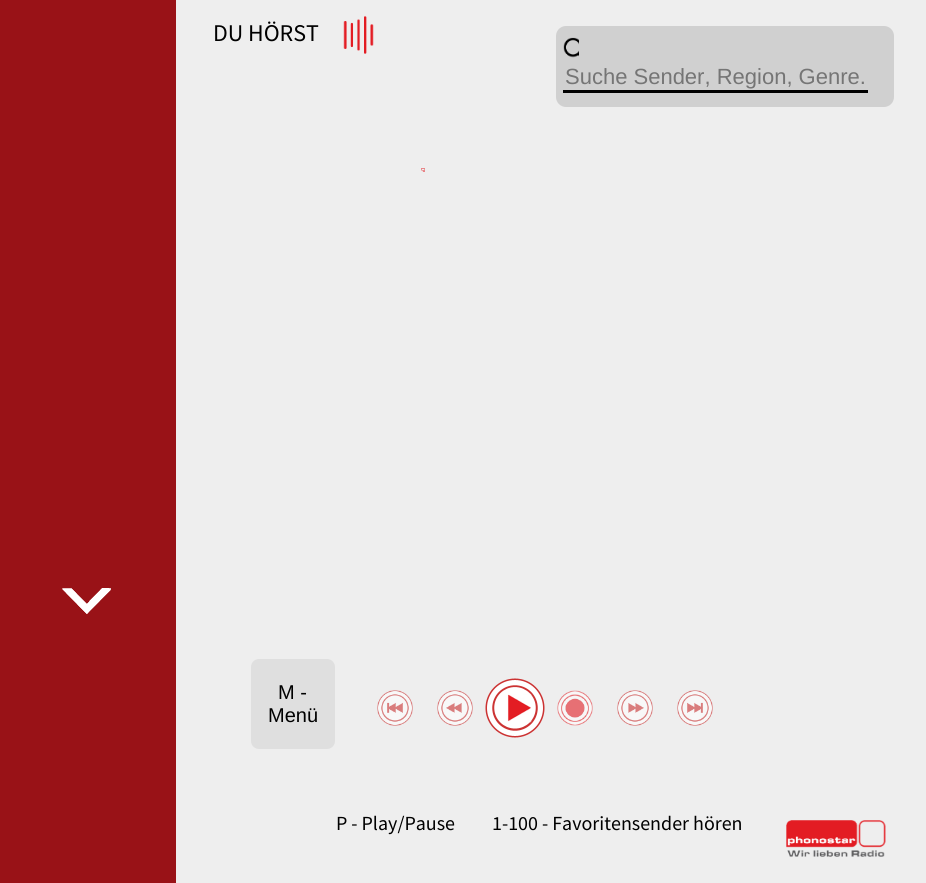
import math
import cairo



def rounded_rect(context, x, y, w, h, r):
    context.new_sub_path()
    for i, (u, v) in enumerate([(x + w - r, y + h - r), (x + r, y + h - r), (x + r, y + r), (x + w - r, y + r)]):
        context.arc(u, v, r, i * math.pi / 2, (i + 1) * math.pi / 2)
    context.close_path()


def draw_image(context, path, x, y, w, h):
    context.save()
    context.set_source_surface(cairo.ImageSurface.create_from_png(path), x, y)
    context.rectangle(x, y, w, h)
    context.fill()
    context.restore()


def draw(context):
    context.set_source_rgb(238 / 255, 238 / 255, 238 / 255)
    context.paint()
    context.set_source_rgb(153 / 255, 18 / 255, 23 / 255)
    context.rectangle(0, 0, 176, 883)
    context.fill()
    draw_image(context, "images/1.png", 62, 588, 49, 26)
    draw_image(context, "images/2.png", 343, 15, 31, 39)
    context.set_source_rgb(208 / 255, 208 / 255, 208 / 255)
    rounded_rect(context, 556, 26, 338, 81, 10)
    context.fill()
    draw_image(context, "images/3.png", 563, 37, 16, 21)
    context.set_source_rgb(0, 0, 0)
    context.rectangle(563, 90, 305, 3)
    context.fill()
    draw_image(context, "images/4.png", 421, 168, 4, 4)
    context.set_source_rgb(223 / 255, 223 / 255, 223 / 255)
    rounded_rect(context, 251, 659, 84, 90, 8)
    context.fill()
    draw_image(context, "images/5.png", 377, 690, 36, 36)
    draw_image(context, "images/6.png", 437, 690, 36, 36)
    draw_image(context, "images/7.png", 485, 678, 60, 60)
    draw_image(context, "images/8.png", 557, 690, 36, 36)
    draw_image(context, "images/9.png", 617, 690, 36, 36)
    draw_image(context, "images/10.png", 677, 690, 36, 36)
    draw_image(context, "images/11.png", 786, 820, 100, 37)
    context.select_font_face("Source Sans Pro")
    context.set_font_size(24)
    context.set_source_rgb(0, 0, 0)
    context.move_to(213, 41)
    context.show_text("DU HÖRST")
    context.select_font_face("Liberation Sans")
    context.set_font_size(22)
    context.set_source_rgb(117 / 255, 117 / 255, 117 / 255)
    context.move_to(565, 84)
    context.show_text("Suche Sender, Region, Genre.")
    context.set_font_size(20)
    context.set_source_rgb(0, 0, 0)
    context.move_to(278, 699)
    context.show_text("M -")
    context.move_to(268, 722)
    context.show_text("Menü")
    context.select_font_face("Source Sans Pro")
    context.move_to(336, 830)
    context.show_text("P - Play/Pause")
    context.move_to(492, 830)
    context.show_text("1-100 - Favoritensender hören")


surface = cairo.ImageSurface(cairo.Format.RGB24, 926, 883)
context = cairo.Context(surface)
options = cairo.FontOptions()
options.set_hint_metrics(cairo.HintMetrics.OFF)
options.set_hint_style(cairo.HintStyle.NONE)
context.set_font_options(options)
context.set_miter_limit(4)
draw(context)
surface.write_to_png("out.png")
